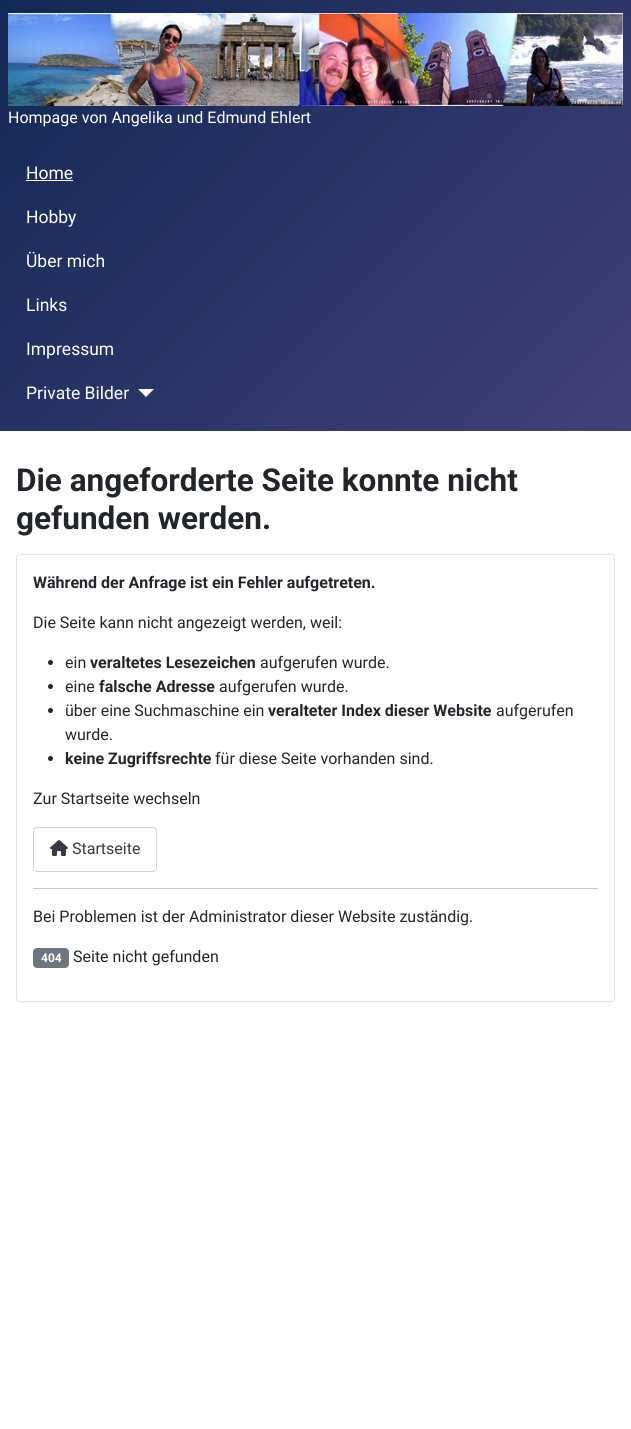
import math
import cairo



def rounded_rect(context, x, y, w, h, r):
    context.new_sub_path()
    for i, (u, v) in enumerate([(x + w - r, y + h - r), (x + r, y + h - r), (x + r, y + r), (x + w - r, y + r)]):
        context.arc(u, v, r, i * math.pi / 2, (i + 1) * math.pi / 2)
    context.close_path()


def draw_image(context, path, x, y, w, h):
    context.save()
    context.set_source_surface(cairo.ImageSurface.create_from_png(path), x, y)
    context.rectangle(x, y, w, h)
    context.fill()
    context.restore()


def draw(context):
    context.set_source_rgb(1, 1, 1)
    context.paint()
    gradient = cairo.LinearGradient(50, -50, 581, 481)
    gradient.add_color_stop_rgba(0, 17 / 255, 40 / 255, 85 / 255, 1)
    gradient.add_color_stop_rgba(1, 66 / 255, 64 / 255, 119 / 255, 1)
    context.set_source(gradient)
    context.rectangle(0, 0, 631, 431)
    context.fill()
    draw_image(context, "images/1.png", 8, 13, 615, 93)
    context.set_source_rgb(1, 1, 1)
    context.rectangle(26, 180, 47, 1)
    context.fill()
    context.new_path()
    context.move_to(138, 389)
    context.line_to(154, 389)
    context.line_to(146, 397)
    context.close_path()
    context.fill()
    rounded_rect(context, 16.5, 554.5, 598, 447, 3.5)
    context.set_source_rgb(223 / 255, 227 / 255, 231 / 255)
    context.set_line_width(1)
    context.stroke()
    context.set_source_rgb(34 / 255, 38 / 255, 42 / 255)
    context.arc(50.5, 662.5, 2.5, 0, 2 * math.pi)
    context.fill()
    context.arc(50.5, 686.5, 2.5, 0, 2 * math.pi)
    context.fill()
    context.arc(50.5, 710.5, 2.5, 0, 2 * math.pi)
    context.fill()
    context.arc(50.5, 758.5, 2.5, 0, 2 * math.pi)
    context.fill()
    rounded_rect(context, 33.5, 827.5, 123, 44, 3.5)
    context.set_source_rgb(206 / 255, 212 / 255, 218 / 255)
    context.stroke()
    draw_image(context, "images/2.png", 50, 840, 18, 16)
    context.set_source_rgb(200 / 255, 201 / 255, 202 / 255)
    context.rectangle(33, 888, 565, 1)
    context.fill()
    context.set_source_rgb(109 / 255, 117 / 255, 126 / 255)
    rounded_rect(context, 33, 948, 36, 20, 4)
    context.fill()
    context.select_font_face("Roboto")
    context.set_font_size(16)
    context.set_source_rgb(1, 1, 1)
    context.move_to(8, 123)
    context.show_text("Hompage von Angelika und Edmund Ehlert")
    context.set_font_size(17.5)
    context.move_to(26, 179)
    context.show_text("Home")
    context.move_to(26, 223)
    context.show_text("Hobby")
    context.move_to(26, 267)
    context.show_text("Über mich")
    context.move_to(26, 311)
    context.show_text("Links")
    context.move_to(26, 355)
    context.show_text("Impressum")
    context.move_to(26, 399)
    context.show_text("Private Bilder")
    context.select_font_face("Roboto", cairo.FontSlant.NORMAL, cairo.FontWeight.BOLD)
    context.set_font_size(31.5)
    context.set_source_rgb(34 / 255, 38 / 255, 42 / 255)
    context.move_to(16, 491)
    context.show_text("Die angeforderte Seite konnte nicht")
    context.move_to(16, 529)
    context.show_text("gefunden werden.")
    context.set_font_size(16)
    context.move_to(33, 588)
    context.show_text("Während der Anfrage ist ein Fehler aufgetreten.")
    context.select_font_face("Roboto")
    context.move_to(33, 628)
    context.show_text("Die Seite kann nicht angezeigt werden, weil:")
    context.move_to(65, 668)
    context.show_text("ein")
    context.select_font_face("Roboto", cairo.FontSlant.NORMAL, cairo.FontWeight.BOLD)
    context.move_to(90, 668)
    context.show_text("veraltetes Lesezeichen")
    context.select_font_face("Roboto")
    context.move_to(260, 668)
    context.show_text("aufgerufen wurde.")
    context.move_to(65, 692)
    context.show_text("eine")
    context.select_font_face("Roboto", cairo.FontSlant.NORMAL, cairo.FontWeight.BOLD)
    context.move_to(99, 692)
    context.show_text("falsche Adresse")
    context.select_font_face("Roboto")
    context.move_to(219, 692)
    context.show_text("aufgerufen wurde.")
    context.move_to(65, 716)
    context.show_text("über eine Suchmaschine ein")
    context.select_font_face("Roboto", cairo.FontSlant.NORMAL, cairo.FontWeight.BOLD)
    context.move_to(268, 716)
    context.show_text("veralteter Index dieser Website")
    context.select_font_face("Roboto")
    context.move_to(496, 716)
    context.show_text("aufgerufen")
    context.move_to(65, 740)
    context.show_text("wurde.")
    context.select_font_face("Roboto", cairo.FontSlant.NORMAL, cairo.FontWeight.BOLD)
    context.move_to(65, 764)
    context.show_text("keine Zugriffsrechte")
    context.select_font_face("Roboto")
    context.move_to(215, 764)
    context.show_text("für diese Seite vorhanden sind.")
    context.move_to(33, 804)
    context.show_text("Zur Startseite wechseln")
    context.set_source_rgb(53 / 255, 59 / 255, 65 / 255)
    context.move_to(72, 854)
    context.show_text("Startseite")
    context.set_source_rgb(34 / 255, 38 / 255, 42 / 255)
    context.move_to(33, 922)
    context.show_text("Bei Problemen ist der Administrator dieser Website zuständig.")
    context.select_font_face("Roboto", cairo.FontSlant.NORMAL, cairo.FontWeight.BOLD)
    context.set_font_size(12)
    context.set_source_rgb(1, 1, 1)
    context.move_to(41, 962)
    context.show_text("404")
    context.select_font_face("Roboto")
    context.set_font_size(16)
    context.set_source_rgb(34 / 255, 38 / 255, 42 / 255)
    context.move_to(73, 962)
    context.show_text("Seite nicht gefunden")


surface = cairo.ImageSurface(cairo.Format.RGB24, 631, 1429)
context = cairo.Context(surface)
options = cairo.FontOptions()
options.set_hint_metrics(cairo.HintMetrics.OFF)
options.set_hint_style(cairo.HintStyle.NONE)
context.set_font_options(options)
context.set_miter_limit(4)
draw(context)
surface.write_to_png("out.png")
